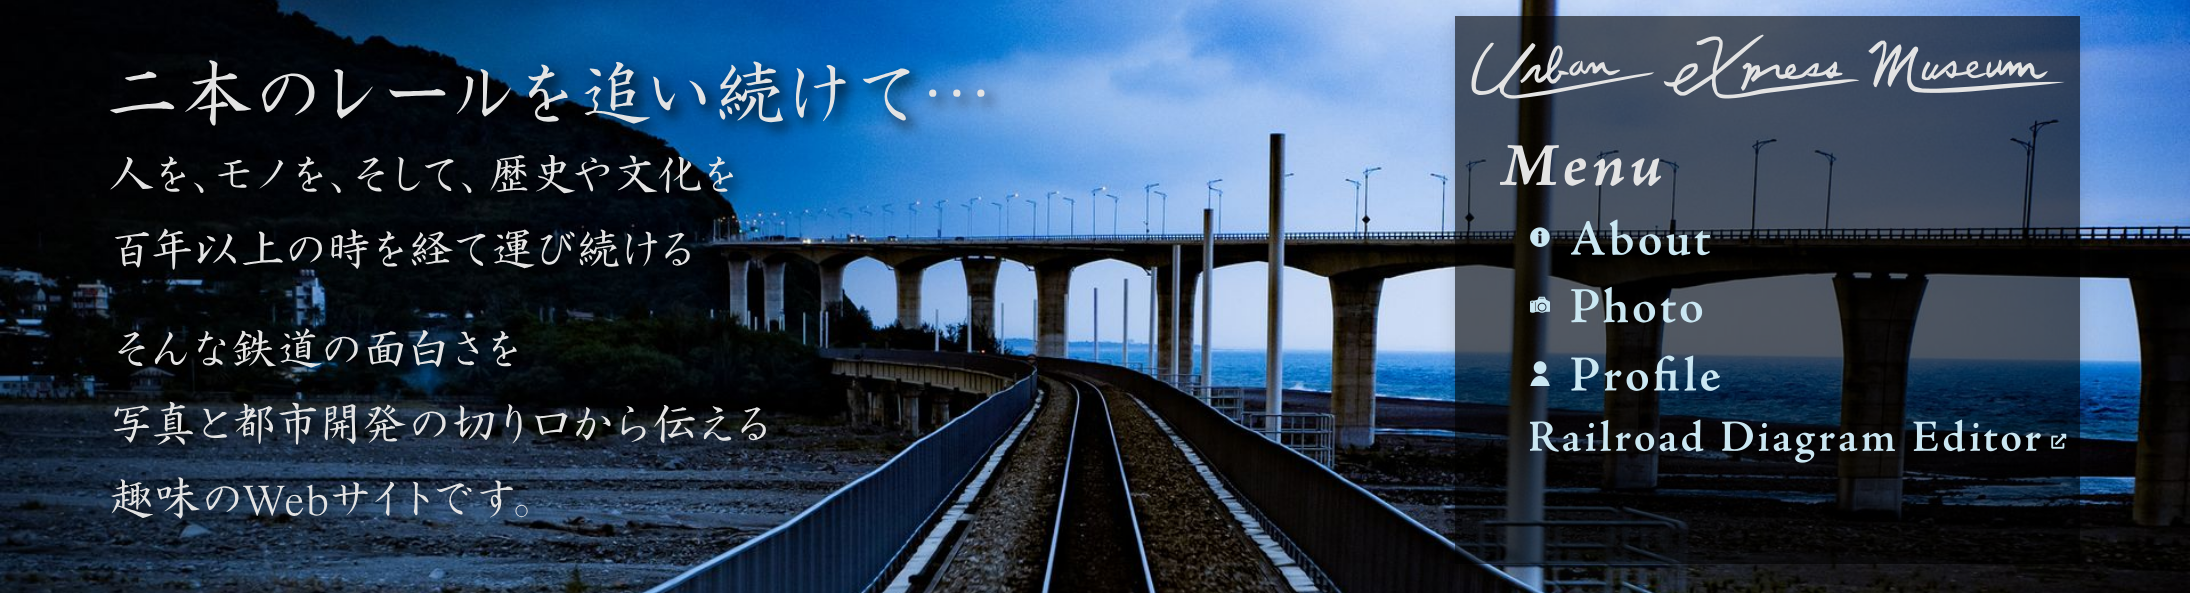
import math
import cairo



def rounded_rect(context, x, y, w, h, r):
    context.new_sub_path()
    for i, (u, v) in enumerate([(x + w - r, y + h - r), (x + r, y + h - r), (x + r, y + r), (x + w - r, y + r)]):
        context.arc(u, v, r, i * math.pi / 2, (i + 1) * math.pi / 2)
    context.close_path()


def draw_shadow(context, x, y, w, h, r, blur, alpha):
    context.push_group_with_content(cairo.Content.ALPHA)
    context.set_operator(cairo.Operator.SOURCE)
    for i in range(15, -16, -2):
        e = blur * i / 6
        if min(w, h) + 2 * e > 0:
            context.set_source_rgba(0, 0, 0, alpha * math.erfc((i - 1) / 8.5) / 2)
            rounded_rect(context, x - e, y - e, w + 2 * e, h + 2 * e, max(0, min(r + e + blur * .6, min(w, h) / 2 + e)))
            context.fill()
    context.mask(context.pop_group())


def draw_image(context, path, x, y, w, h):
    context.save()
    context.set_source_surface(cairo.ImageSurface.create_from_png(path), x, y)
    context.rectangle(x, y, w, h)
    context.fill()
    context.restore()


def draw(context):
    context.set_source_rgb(1, 1, 1)
    context.paint()
    draw_image(context, "images/1.png", 0, 0, 2190, 593)
    draw_image(context, "images/2.png", 110, 58, 891, 82)
    draw_image(context, "images/3.png", 110, 154, 667, 379)
    context.save()
    context.set_fill_rule(cairo.FillRule.EVEN_ODD)
    context.new_path()
    context.move_to(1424, 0)
    context.line_to(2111, 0)
    context.line_to(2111, 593)
    context.line_to(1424, 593)
    context.close_path()
    context.move_to(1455, 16)
    context.line_to(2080, 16)
    context.line_to(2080, 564)
    context.line_to(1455, 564)
    context.close_path()
    context.clip()
    context.set_source_rgb(28 / 255, 28 / 255, 28 / 255)
    draw_shadow(context, 1455, 26, 625, 548, 0, 10, 0.15)
    context.restore()
    context.set_source_rgba(0, 0, 0, 0.6)
    context.rectangle(1455, 16, 625, 548)
    context.fill()
    draw_image(context, "images/4.png", 1471, 34, 594, 65)
    draw_image(context, "images/5.png", 1500, 145, 161, 41)
    draw_image(context, "images/6.png", 1530, 227, 20, 20)
    draw_image(context, "images/7.png", 1571, 219, 140, 37)
    draw_image(context, "images/8.png", 1530, 296, 20, 17)
    draw_image(context, "images/9.png", 1571, 286, 132, 37)
    draw_image(context, "images/10.png", 1530, 361, 20, 25)
    draw_image(context, "images/11.png", 1571, 355, 149, 36)
    draw_image(context, "images/12.png", 1530, 419, 511, 44)
    draw_image(context, "images/13.png", 2051, 433, 16, 16)


surface = cairo.ImageSurface(cairo.Format.RGB24, 2190, 593)
context = cairo.Context(surface)
options = cairo.FontOptions()
options.set_hint_metrics(cairo.HintMetrics.OFF)
options.set_hint_style(cairo.HintStyle.NONE)
context.set_font_options(options)
context.set_miter_limit(4)
draw(context)
surface.write_to_png("out.png")
